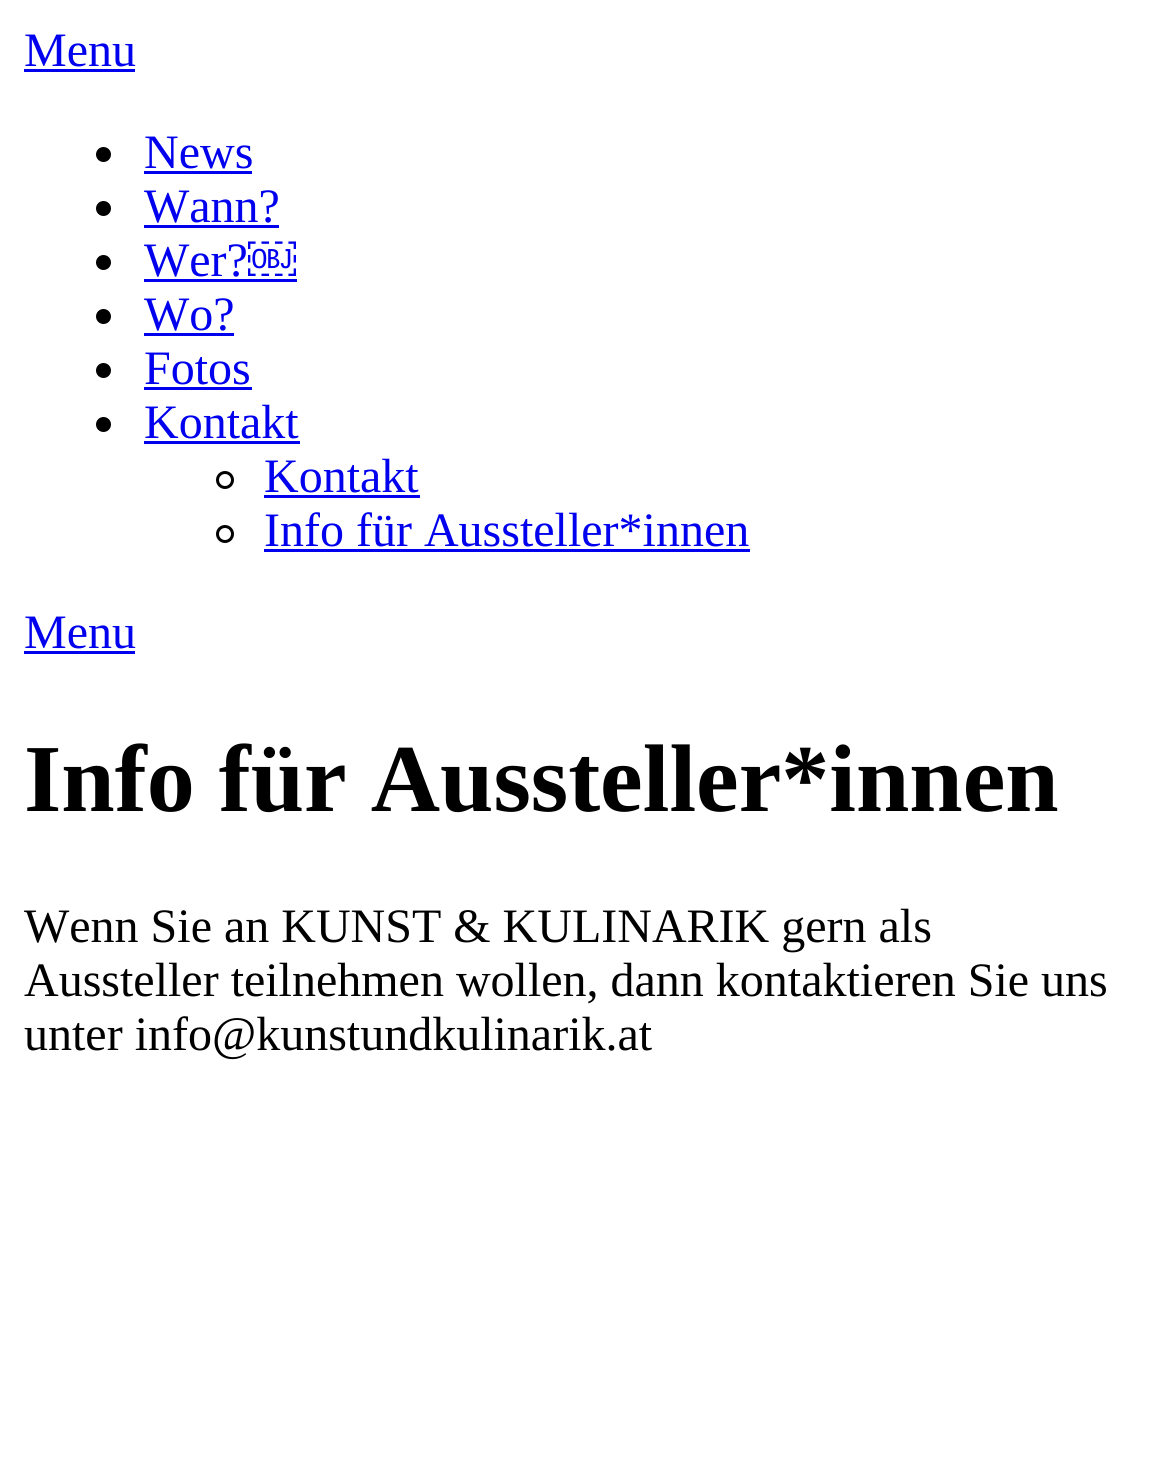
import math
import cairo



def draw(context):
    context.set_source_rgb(1, 1, 1)
    context.paint()
    context.set_source_rgb(0, 0, 238 / 255)
    context.rectangle(24, 69, 111, 3)
    context.fill()
    context.set_source_rgb(0, 0, 0)
    context.arc(103.5, 154.5, 7.5, 0, 2 * math.pi)
    context.fill()
    context.set_source_rgb(0, 0, 238 / 255)
    context.rectangle(144, 171, 108, 3)
    context.fill()
    context.set_source_rgb(0, 0, 0)
    context.arc(103.5, 208.5, 7.5, 0, 2 * math.pi)
    context.fill()
    context.set_source_rgb(0, 0, 238 / 255)
    context.rectangle(144, 225, 135, 3)
    context.fill()
    context.set_source_rgb(0, 0, 0)
    context.arc(103.5, 262.5, 7.5, 0, 2 * math.pi)
    context.fill()
    context.set_source_rgb(0, 0, 238 / 255)
    context.rectangle(144, 279, 153, 3)
    context.fill()
    context.set_source_rgb(0, 0, 0)
    context.arc(103.5, 316.5, 7.5, 0, 2 * math.pi)
    context.fill()
    context.set_source_rgb(0, 0, 238 / 255)
    context.rectangle(144, 333, 90, 3)
    context.fill()
    context.set_source_rgb(0, 0, 0)
    context.arc(103.5, 370.5, 7.5, 0, 2 * math.pi)
    context.fill()
    context.set_source_rgb(0, 0, 238 / 255)
    context.rectangle(144, 387, 108, 3)
    context.fill()
    context.set_source_rgb(0, 0, 0)
    context.arc(103.5, 424.5, 7.5, 0, 2 * math.pi)
    context.fill()
    context.set_source_rgb(0, 0, 238 / 255)
    context.rectangle(144, 441, 156, 3)
    context.fill()
    context.arc(225, 480, 7.5, 0, 2 * math.pi)
    context.set_source_rgb(0, 0, 0)
    context.set_line_width(3)
    context.stroke()
    context.set_source_rgb(0, 0, 238 / 255)
    context.rectangle(264, 495, 156, 3)
    context.fill()
    context.arc(225, 534, 7.5, 0, 2 * math.pi)
    context.set_source_rgb(0, 0, 0)
    context.stroke()
    context.set_source_rgb(0, 0, 238 / 255)
    context.rectangle(264, 549, 486, 3)
    context.fill()
    context.rectangle(24, 651, 111, 3)
    context.fill()
    context.select_font_face("Liberation Serif")
    context.set_font_size(48)
    context.move_to(24, 66)
    context.show_text("Menu")
    context.move_to(144, 168)
    context.show_text("News")
    context.move_to(144, 222)
    context.show_text("Wann?")
    context.move_to(144, 276)
    context.show_text("Wer?￼")
    context.move_to(144, 330)
    context.show_text("Wo?")
    context.move_to(144, 384)
    context.show_text("Fotos")
    context.move_to(144, 438)
    context.show_text("Kontakt")
    context.move_to(264, 492)
    context.show_text("Kontakt")
    context.move_to(264, 546)
    context.show_text("Info für Aussteller*innen")
    context.move_to(24, 648)
    context.show_text("Menu")
    context.select_font_face("Liberation Serif", cairo.FontSlant.NORMAL, cairo.FontWeight.BOLD)
    context.set_font_size(96)
    context.set_source_rgb(0, 0, 0)
    context.move_to(24, 811)
    context.show_text("Info für Aussteller*innen")
    context.select_font_face("Liberation Serif")
    context.set_font_size(48)
    context.move_to(24, 942)
    context.show_text("Wenn Sie an KUNST & KULINARIK gern als")
    context.move_to(24, 996)
    context.show_text("Aussteller teilnehmen wollen, dann kontaktieren Sie uns")
    context.move_to(24, 1050)
    context.show_text("unter info@kunstundkulinarik.at")


surface = cairo.ImageSurface(cairo.Format.RGB24, 1155, 1476)
context = cairo.Context(surface)
options = cairo.FontOptions()
options.set_hint_metrics(cairo.HintMetrics.OFF)
options.set_hint_style(cairo.HintStyle.NONE)
context.set_font_options(options)
context.set_miter_limit(4)
draw(context)
surface.write_to_png("out.png")
